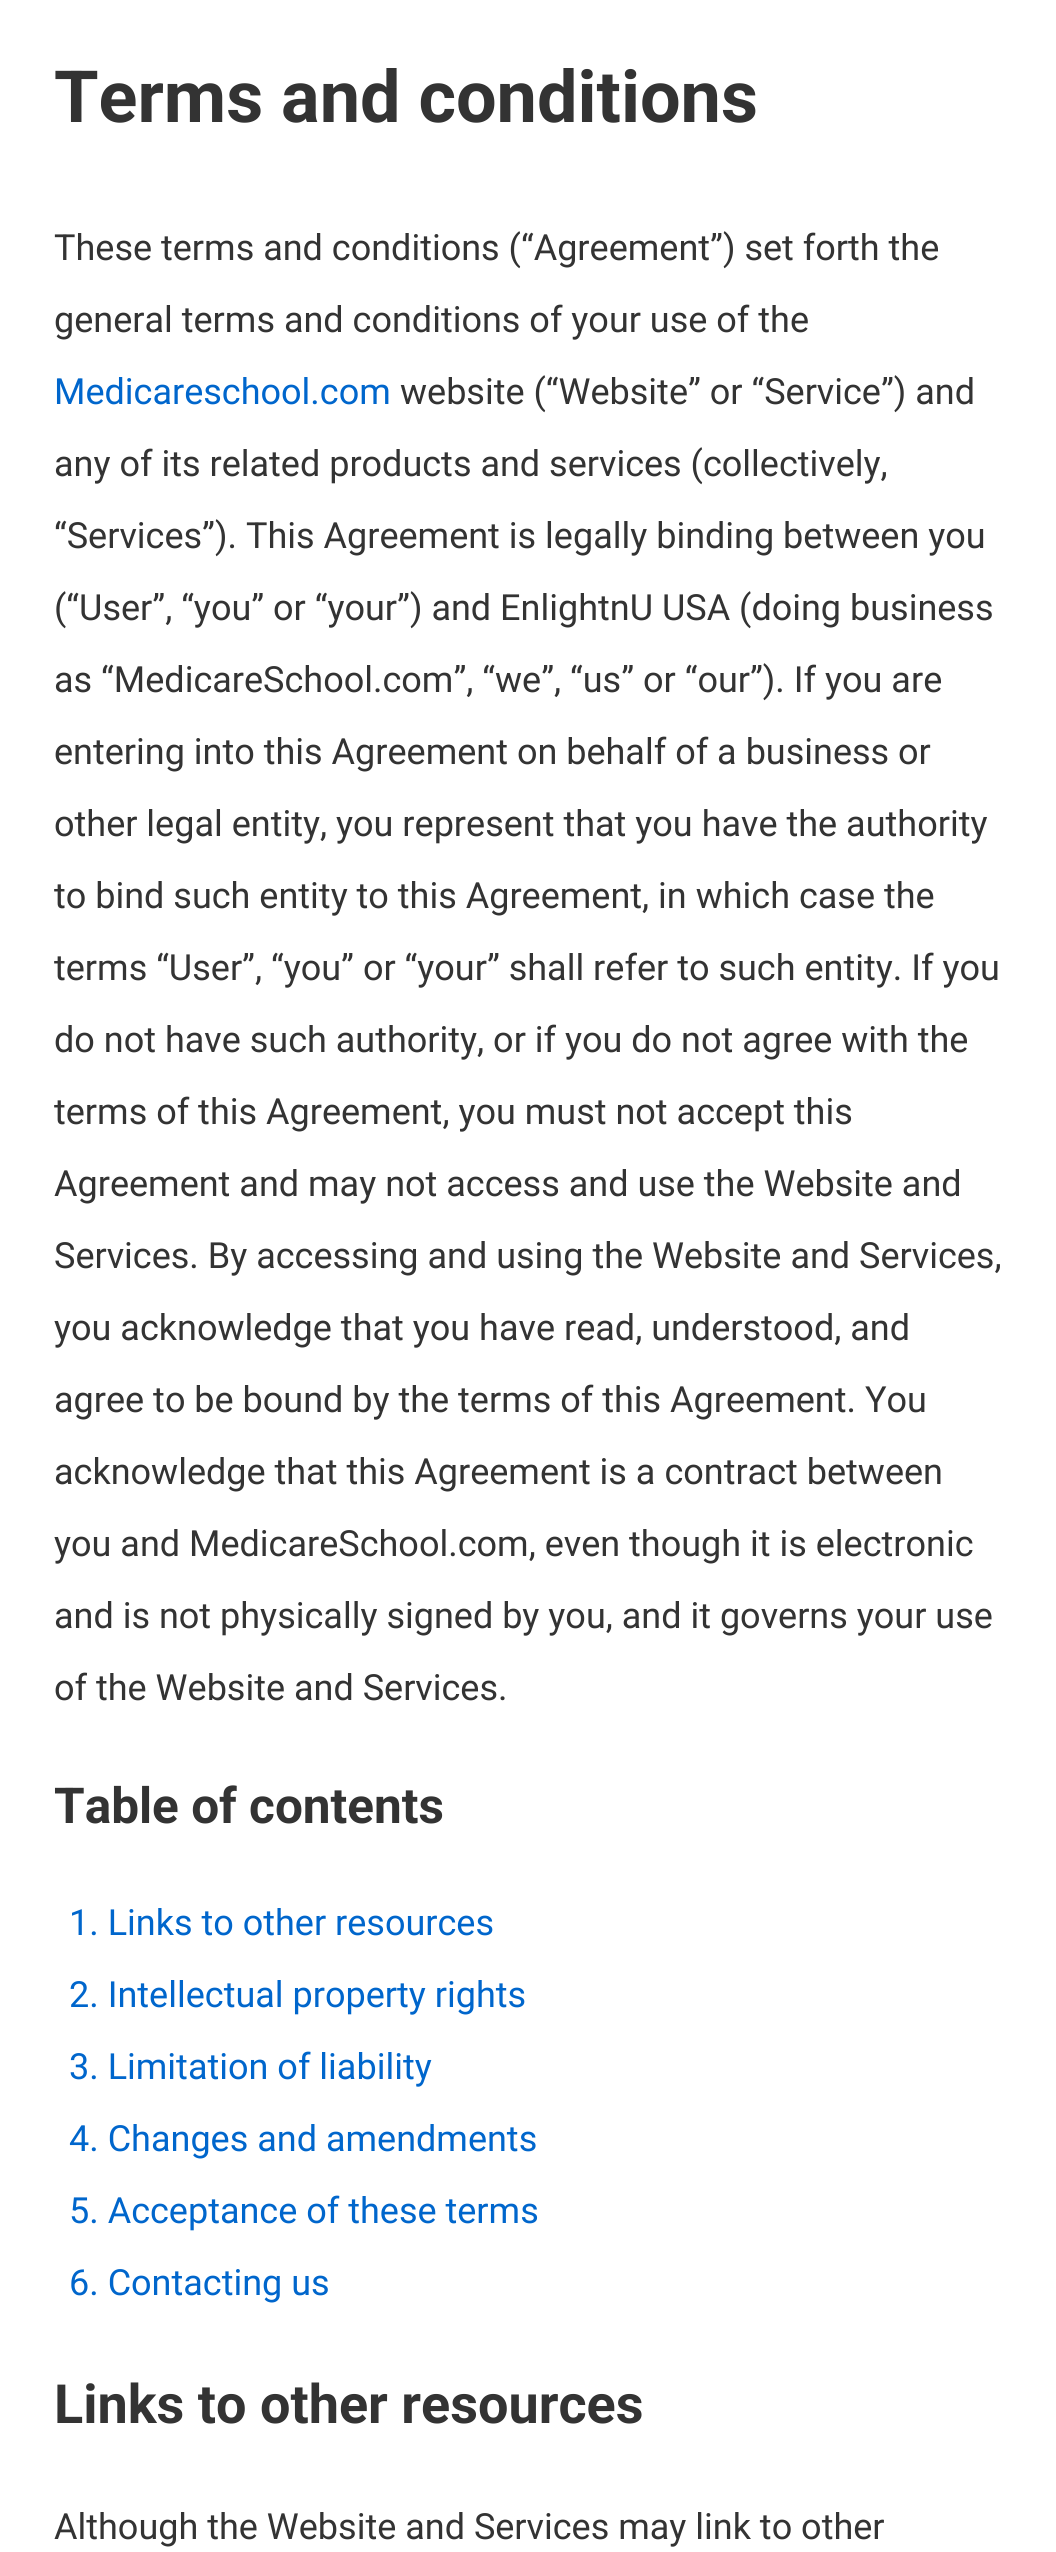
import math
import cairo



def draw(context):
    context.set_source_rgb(1, 1, 1)
    context.paint()
    context.select_font_face("Roboto", cairo.FontSlant.NORMAL, cairo.FontWeight.BOLD)
    context.set_font_size(72)
    context.set_source_rgb(51 / 255, 51 / 255, 51 / 255)
    context.move_to(54, 122)
    context.show_text("Terms and conditions")
    context.select_font_face("Roboto")
    context.set_font_size(36)
    context.move_to(54, 260)
    context.show_text("These terms and conditions (“Agreement”) set forth the")
    context.move_to(54, 332)
    context.show_text("general terms and conditions of your use of the")
    context.set_source_rgb(0, 102 / 255, 204 / 255)
    context.move_to(54, 404)
    context.show_text("Medicareschool.com")
    context.set_source_rgb(51 / 255, 51 / 255, 51 / 255)
    context.move_to(400, 404)
    context.show_text("website (“Website” or “Service”) and")
    context.move_to(54, 476)
    context.show_text("any of its related products and services (collectively,")
    context.move_to(54, 548)
    context.show_text("“Services”). This Agreement is legally binding between you")
    context.move_to(54, 620)
    context.show_text("(“User”, “you” or “your”) and EnlightnU USA (doing business")
    context.move_to(54, 692)
    context.show_text("as “MedicareSchool.com”, “we”, “us” or “our”). If you are")
    context.move_to(54, 764)
    context.show_text("entering into this Agreement on behalf of a business or")
    context.move_to(54, 836)
    context.show_text("other legal entity, you represent that you have the authority")
    context.move_to(54, 908)
    context.show_text("to bind such entity to this Agreement, in which case the")
    context.move_to(54, 980)
    context.show_text("terms “User”, “you” or “your” shall refer to such entity. If you")
    context.move_to(54, 1052)
    context.show_text("do not have such authority, or if you do not agree with the")
    context.move_to(54, 1124)
    context.show_text("terms of this Agreement, you must not accept this")
    context.move_to(54, 1196)
    context.show_text("Agreement and may not access and use the Website and")
    context.move_to(54, 1268)
    context.show_text("Services. By accessing and using the Website and Services,")
    context.move_to(54, 1340)
    context.show_text("you acknowledge that you have read, understood, and")
    context.move_to(54, 1412)
    context.show_text("agree to be bound by the terms of this Agreement. You")
    context.move_to(54, 1484)
    context.show_text("acknowledge that this Agreement is a contract between")
    context.move_to(54, 1556)
    context.show_text("you and MedicareSchool.com, even though it is electronic")
    context.move_to(54, 1628)
    context.show_text("and is not physically signed by you, and it governs your use")
    context.move_to(54, 1700)
    context.show_text("of the Website and Services.")
    context.select_font_face("Roboto", cairo.FontSlant.NORMAL, cairo.FontWeight.BOLD)
    context.set_font_size(49.5)
    context.move_to(54, 1823)
    context.show_text("Table of contents")
    context.select_font_face("Roboto")
    context.set_font_size(36)
    context.set_source_rgb(0, 102 / 255, 204 / 255)
    context.move_to(69, 1935)
    context.show_text("1. Links to other resources")
    context.move_to(69, 2007)
    context.show_text("2. Intellectual property rights")
    context.move_to(69, 2079)
    context.show_text("3. Limitation of liability")
    context.move_to(69, 2151)
    context.show_text("4. Changes and amendments")
    context.move_to(69, 2223)
    context.show_text("5. Acceptance of these terms")
    context.move_to(69, 2295)
    context.show_text("6. Contacting us")
    context.select_font_face("Roboto", cairo.FontSlant.NORMAL, cairo.FontWeight.BOLD)
    context.set_font_size(54)
    context.set_source_rgb(51 / 255, 51 / 255, 51 / 255)
    context.move_to(54, 2423)
    context.show_text("Links to other resources")
    context.select_font_face("Roboto")
    context.set_font_size(36)
    context.move_to(54, 2539)
    context.show_text("Although the Website and Services may link to other")


surface = cairo.ImageSurface(cairo.Format.RGB24, 1056, 2552)
context = cairo.Context(surface)
options = cairo.FontOptions()
options.set_hint_metrics(cairo.HintMetrics.OFF)
options.set_hint_style(cairo.HintStyle.NONE)
context.set_font_options(options)
context.set_miter_limit(4)
draw(context)
surface.write_to_png("out.png")
